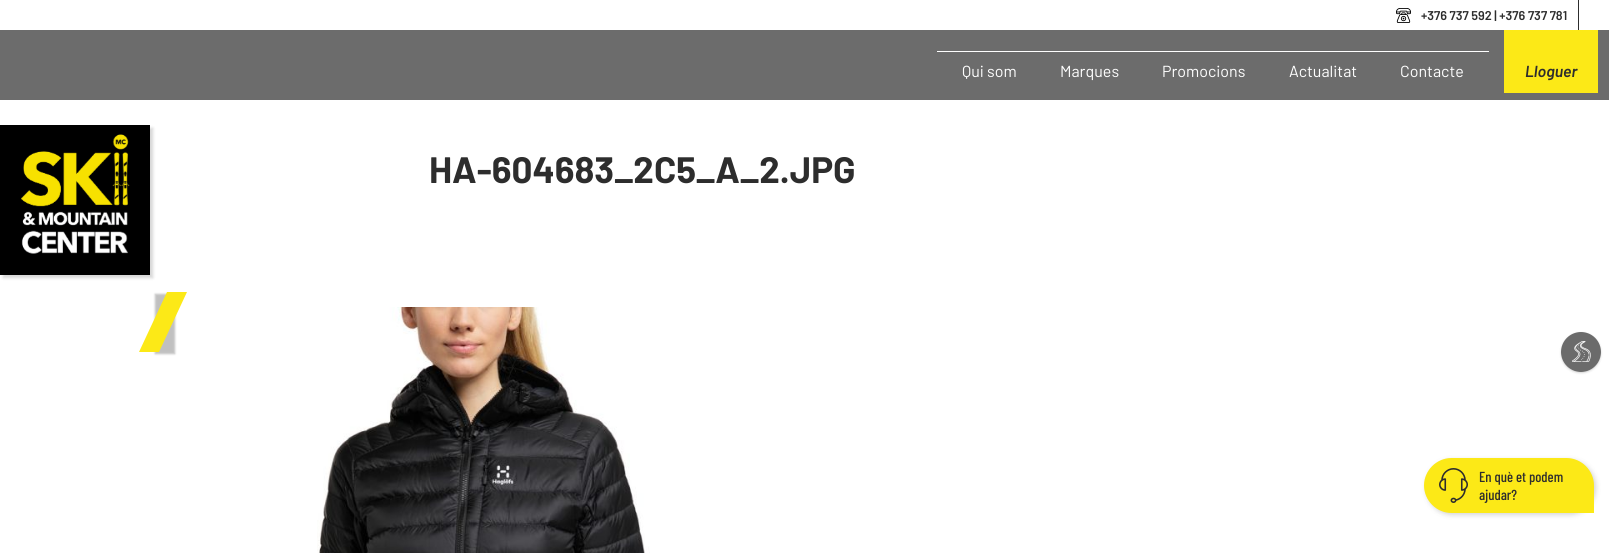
import math
import cairo



def rounded_rect(context, x, y, w, h, r):
    context.new_sub_path()
    for i, (u, v) in enumerate([(x + w - r, y + h - r), (x + r, y + h - r), (x + r, y + r), (x + w - r, y + r)]):
        context.arc(u, v, r, i * math.pi / 2, (i + 1) * math.pi / 2)
    context.close_path()


def draw_shadow(context, x, y, w, h, r, blur, alpha):
    context.push_group_with_content(cairo.Content.ALPHA)
    context.set_operator(cairo.Operator.SOURCE)
    for i in range(15, -16, -2):
        e = blur * i / 6
        if min(w, h) + 2 * e > 0:
            context.set_source_rgba(0, 0, 0, alpha * math.erfc((i - 1) / 8.5) / 2)
            rounded_rect(context, x - e, y - e, w + 2 * e, h + 2 * e, max(0, min(r + e + blur * .6, min(w, h) / 2 + e)))
            context.fill()
    context.mask(context.pop_group())


def draw_image(context, path, x, y, w, h):
    context.save()
    context.set_source_surface(cairo.ImageSurface.create_from_png(path), x, y)
    context.rectangle(x, y, w, h)
    context.fill()
    context.restore()


def draw(context):
    context.set_source_rgb(1, 1, 1)
    context.paint()
    draw_image(context, "images/1.png", 1396, 8, 15, 15)
    context.set_source_rgb(45 / 255, 45 / 255, 45 / 255)
    context.rectangle(1578, 0, 1, 30)
    context.fill()
    context.set_source_rgb(108 / 255, 108 / 255, 108 / 255)
    context.rectangle(0, 30, 1609, 70)
    context.fill()
    context.set_source_rgb(1, 1, 1)
    context.rectangle(937, 51, 552, 1)
    context.fill()
    context.set_source_rgb(252 / 255, 233 / 255, 23 / 255)
    context.rectangle(1597, 30, 1, 63)
    context.fill()
    context.rectangle(1504, 92, 94, 1)
    context.fill()
    context.rectangle(1504, 30, 1, 63)
    context.fill()
    context.save()
    context.rectangle(1505, 30, 92, 62)
    context.clip()
    context.new_path()
    context.move_to(1498, 30)
    context.line_to(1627, 30)
    context.line_to(1604, 92)
    context.line_to(1475, 92)
    context.close_path()
    context.fill()
    context.restore()
    context.set_source_rgb(0, 0, 0)
    draw_shadow(context, 3, 128, 150, 150, 0, 1.5, 0.16)
    context.set_source_rgb(0, 0, 0)
    context.rectangle(0, 125, 150, 150)
    context.fill()
    draw_image(context, "images/2.png", 21, 134, 109, 120)
    context.set_source_rgb(45 / 255, 45 / 255, 45 / 255)
    draw_shadow(context, 155, 294, 20, 60, 0, 1, 0.3)
    context.set_source_rgb(252 / 255, 233 / 255, 23 / 255)
    context.new_path()
    context.move_to(167, 292)
    context.line_to(187, 292)
    context.line_to(159, 352)
    context.line_to(139, 352)
    context.close_path()
    context.fill()
    draw_image(context, "images/3.png", 317, 307, 333, 246)
    context.save()
    context.set_fill_rule(cairo.FillRule.EVEN_ODD)
    context.new_path()
    context.move_to(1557, 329)
    context.line_to(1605, 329)
    context.line_to(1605, 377)
    context.line_to(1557, 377)
    context.close_path()
    context.move_to(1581, 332)
    context.curve_to(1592, 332, 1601, 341, 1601, 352)
    context.curve_to(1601, 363, 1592, 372, 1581, 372)
    context.curve_to(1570, 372, 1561, 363, 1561, 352)
    context.curve_to(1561, 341, 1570, 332, 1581, 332)
    context.close_path()
    context.clip()
    context.set_source_rgb(45 / 255, 45 / 255, 45 / 255)
    draw_shadow(context, 1561, 333, 40, 40, 20, 1, 0.2)
    context.restore()
    context.set_source_rgba(45 / 255, 45 / 255, 45 / 255, 0.7)
    context.arc(1581, 352, 20, 0, 2 * math.pi)
    context.fill()
    draw_image(context, "images/4.png", 1572, 341, 19, 21)
    context.set_source_rgb(45 / 255, 45 / 255, 45 / 255)
    draw_shadow(context, 1426, 460, 170, 55, 27.5, 2.5, 0.2)
    context.set_source_rgb(252 / 255, 233 / 255, 23 / 255)
    context.new_path()
    context.move_to(1451.5, 458)
    context.line_to(1566.5, 458)
    context.curve_to(1581.5, 458, 1594, 470.5, 1594, 485.5)
    context.line_to(1594, 513)
    context.line_to(1451.5, 513)
    context.curve_to(1436.5, 513, 1424, 500.5, 1424, 485.5)
    context.curve_to(1424, 470.5, 1436.5, 458, 1451.5, 458)
    context.close_path()
    context.fill()
    draw_image(context, "images/5.png", 1439, 468, 29, 35)
    context.select_font_face("Barlow SemiBold")
    context.set_font_size(12.75)
    context.set_source_rgb(45 / 255, 45 / 255, 45 / 255)
    context.move_to(1421, 20)
    context.show_text("+376 737 592 | +376 737 781")
    context.select_font_face("Barlow")
    context.set_font_size(16)
    context.set_source_rgb(1, 1, 1)
    context.move_to(962, 77)
    context.show_text("Qui som")
    context.move_to(1060, 77)
    context.show_text("Marques")
    context.move_to(1162, 77)
    context.show_text("Promocions")
    context.move_to(1289, 77)
    context.show_text("Actualitat")
    context.move_to(1400, 77)
    context.show_text("Contacte")
    context.select_font_face("Barlow SemiBold", cairo.FontSlant.ITALIC)
    context.set_source_rgb(45 / 255, 45 / 255, 45 / 255)
    context.move_to(1525, 77)
    context.show_text("Lloguer")
    context.select_font_face("Barlow", cairo.FontSlant.NORMAL, cairo.FontWeight.BOLD)
    context.set_font_size(36.75)
    context.move_to(429, 183)
    context.show_text("HA-604683_2C5_A_2.JPG")
    context.select_font_face("Barlow Condensed Medium")
    context.set_font_size(14.5)
    context.move_to(1479, 482)
    context.show_text("En què et podem")
    context.move_to(1479, 500)
    context.show_text("ajudar?")


surface = cairo.ImageSurface(cairo.Format.RGB24, 1609, 553)
context = cairo.Context(surface)
options = cairo.FontOptions()
options.set_hint_metrics(cairo.HintMetrics.OFF)
options.set_hint_style(cairo.HintStyle.NONE)
context.set_font_options(options)
context.set_miter_limit(4)
draw(context)
surface.write_to_png("out.png")
